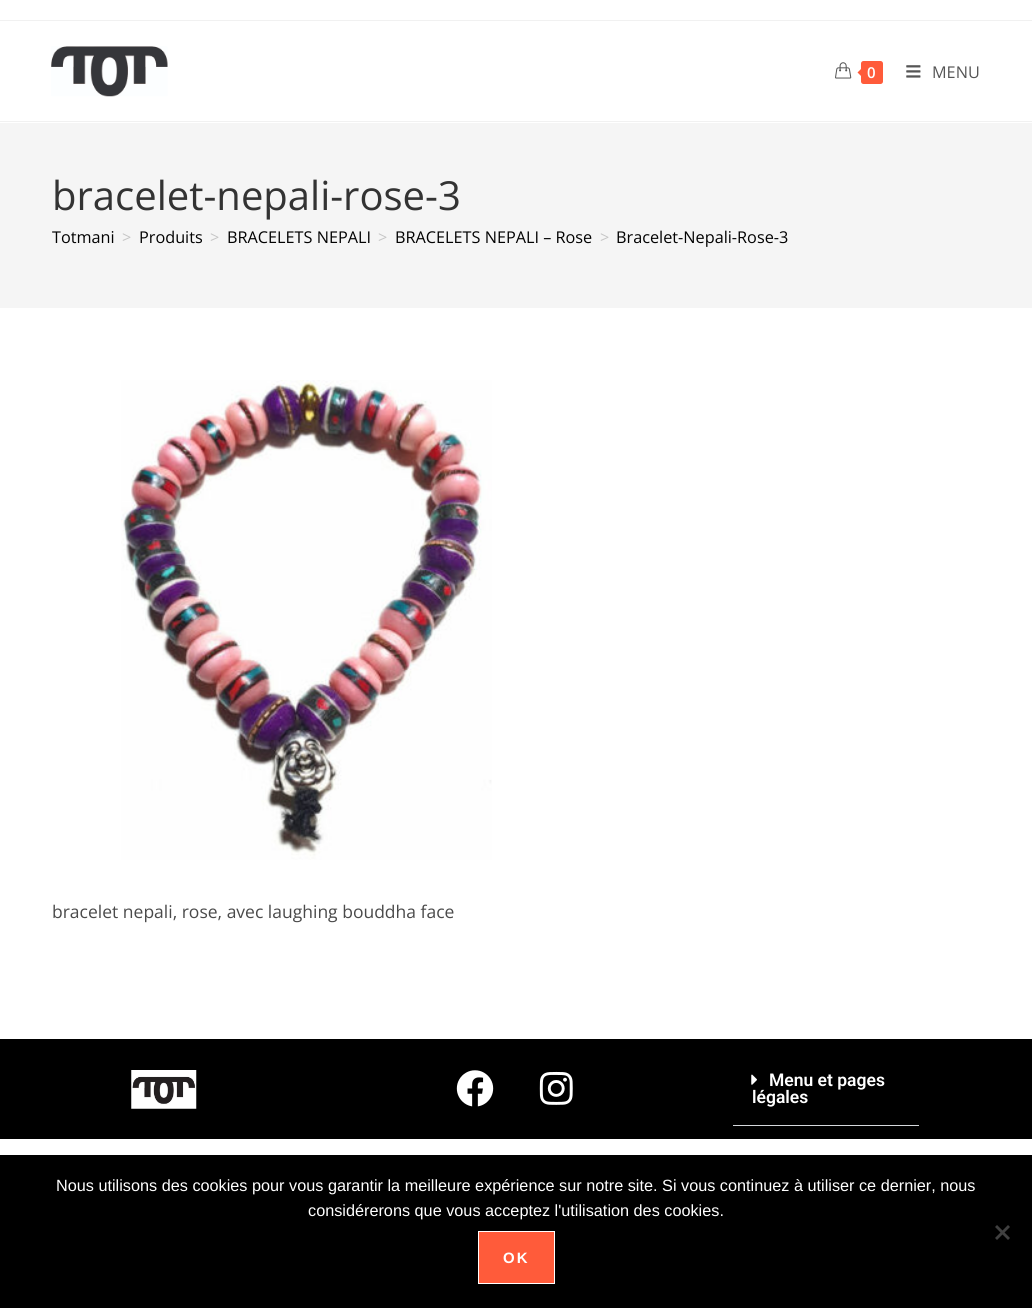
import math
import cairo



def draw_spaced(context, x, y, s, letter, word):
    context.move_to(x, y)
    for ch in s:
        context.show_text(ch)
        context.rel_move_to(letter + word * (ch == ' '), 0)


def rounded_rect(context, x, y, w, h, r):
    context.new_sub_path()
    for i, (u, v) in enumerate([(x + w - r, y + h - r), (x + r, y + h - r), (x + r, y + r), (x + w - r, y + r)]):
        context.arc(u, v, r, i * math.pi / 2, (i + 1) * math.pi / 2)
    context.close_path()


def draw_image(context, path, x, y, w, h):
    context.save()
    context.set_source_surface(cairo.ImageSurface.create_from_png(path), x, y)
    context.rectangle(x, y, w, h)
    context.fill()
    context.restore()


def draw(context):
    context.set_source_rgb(1, 1, 1)
    context.paint()
    context.set_source_rgb(241 / 255, 241 / 255, 241 / 255)
    context.rectangle(0, 20, 1032, 1)
    context.fill()
    context.rectangle(0, 121, 1032, 1)
    context.fill()
    draw_image(context, "images/1.png", 51, 46, 117, 51)
    draw_image(context, "images/2.png", 835, 62, 17, 17)
    context.set_source_rgb(1, 91 / 255, 58 / 255)
    rounded_rect(context, 861, 61, 22, 23, 2.5)
    context.fill()
    context.new_path()
    context.move_to(864, 66)
    context.line_to(864, 79)
    context.line_to(857.5, 72.5)
    context.close_path()
    context.fill()
    draw_image(context, "images/3.png", 906, 65, 15, 13)
    context.set_source_rgb(245 / 255, 245 / 255, 245 / 255)
    context.rectangle(0, 123, 1032, 185)
    context.fill()
    draw_image(context, "images/4.png", 121, 380, 371, 480)
    context.set_source_rgb(0, 0, 0)
    context.rectangle(0, 1039, 1032, 100)
    context.fill()
    draw_image(context, "images/5.png", 131, 1070, 66, 39)
    draw_image(context, "images/6.png", 456, 1070, 38, 37)
    draw_image(context, "images/7.png", 539, 1071, 34, 34)
    context.set_source_rgb(213 / 255, 216 / 255, 220 / 255)
    context.rectangle(733, 1125, 186, 1)
    context.fill()
    draw_image(context, "images/8.png", 751, 1074, 6, 11)
    context.set_source_rgb(0, 0, 0)
    context.rectangle(0, 1155, 1032, 153)
    context.fill()
    context.set_source_rgb(64 / 255, 64 / 255, 64 / 255)
    context.new_path()
    context.move_to(1008, 1225)
    context.line_to(1010, 1227)
    context.line_to(997, 1240)
    context.line_to(995, 1238)
    context.close_path()
    context.fill()
    context.new_path()
    context.move_to(995, 1227)
    context.line_to(997, 1225)
    context.line_to(1010, 1238)
    context.line_to(1008, 1240)
    context.close_path()
    context.fill()
    context.set_source_rgb(1, 91 / 255, 58 / 255)
    context.rectangle(478.5, 1231.5, 76, 52)
    context.fill_preserve()
    context.set_source_rgb(1, 1, 1)
    context.set_line_width(1)
    context.stroke()
    context.select_font_face("Open Sans SemiBold")
    context.set_font_size(15)
    context.move_to(867, 78)
    context.show_text("0")
    context.select_font_face("Open Sans")
    context.set_font_size(16.25)
    context.set_source_rgb(85 / 255, 85 / 255, 85 / 255)
    context.move_to(932, 78)
    context.show_text("MENU")
    context.set_font_size(40)
    context.set_source_rgb(51 / 255, 51 / 255, 51 / 255)
    context.move_to(52, 210)
    context.show_text("bracelet-nepali-rose-3")
    context.set_font_size(16.25)
    context.set_source_rgb(2 / 255, 2 / 255, 2 / 255)
    context.move_to(52, 243)
    context.show_text("Totmani")
    context.set_source_rgb(198 / 255, 198 / 255, 198 / 255)
    context.move_to(122, 243)
    context.show_text(">")
    context.set_source_rgb(2 / 255, 2 / 255, 2 / 255)
    context.move_to(139, 243)
    context.show_text("Produits")
    context.set_source_rgb(198 / 255, 198 / 255, 198 / 255)
    context.move_to(210, 243)
    context.show_text(">")
    context.set_source_rgb(2 / 255, 2 / 255, 2 / 255)
    context.move_to(227, 243)
    context.show_text("BRACELETS NEPALI")
    context.set_source_rgb(198 / 255, 198 / 255, 198 / 255)
    context.move_to(378, 243)
    context.show_text(">")
    context.set_source_rgb(2 / 255, 2 / 255, 2 / 255)
    context.move_to(395, 243)
    context.show_text("BRACELETS NEPALI – Rose")
    context.set_source_rgb(198 / 255, 198 / 255, 198 / 255)
    context.move_to(600, 243)
    context.show_text(">")
    context.set_source_rgb(2 / 255, 2 / 255, 2 / 255)
    context.move_to(616, 243)
    context.show_text("Bracelet-Nepali-Rose-3")
    context.set_font_size(17.5)
    context.set_source_rgb(74 / 255, 74 / 255, 74 / 255)
    context.move_to(52, 918)
    context.show_text("bracelet nepali, rose, avec laughing bouddha face")
    context.select_font_face("Roboto SemiBold")
    context.set_source_rgb(1, 1, 1)
    context.move_to(769, 1086)
    context.show_text("Menu et pages")
    context.move_to(752, 1103)
    context.show_text("légales")
    context.select_font_face("Liberation Sans")
    context.set_font_size(16.25)
    context.move_to(56, 1191)
    context.show_text("Nous utilisons des cookies pour vous garantir la meilleure expérience sur notre site. Si vous continuez à utiliser ce dernier, nous")
    context.move_to(308, 1216)
    context.show_text("considérerons que vous acceptez l'utilisation des cookies.")
    context.select_font_face("Liberation Sans", cairo.FontSlant.NORMAL, cairo.FontWeight.BOLD)
    context.set_font_size(15)
    draw_spaced(context, 503, 1263, "OK", 2, 0)


surface = cairo.ImageSurface(cairo.Format.RGB24, 1032, 1308)
context = cairo.Context(surface)
options = cairo.FontOptions()
options.set_hint_metrics(cairo.HintMetrics.OFF)
options.set_hint_style(cairo.HintStyle.NONE)
context.set_font_options(options)
context.set_miter_limit(4)
draw(context)
surface.write_to_png("out.png")
